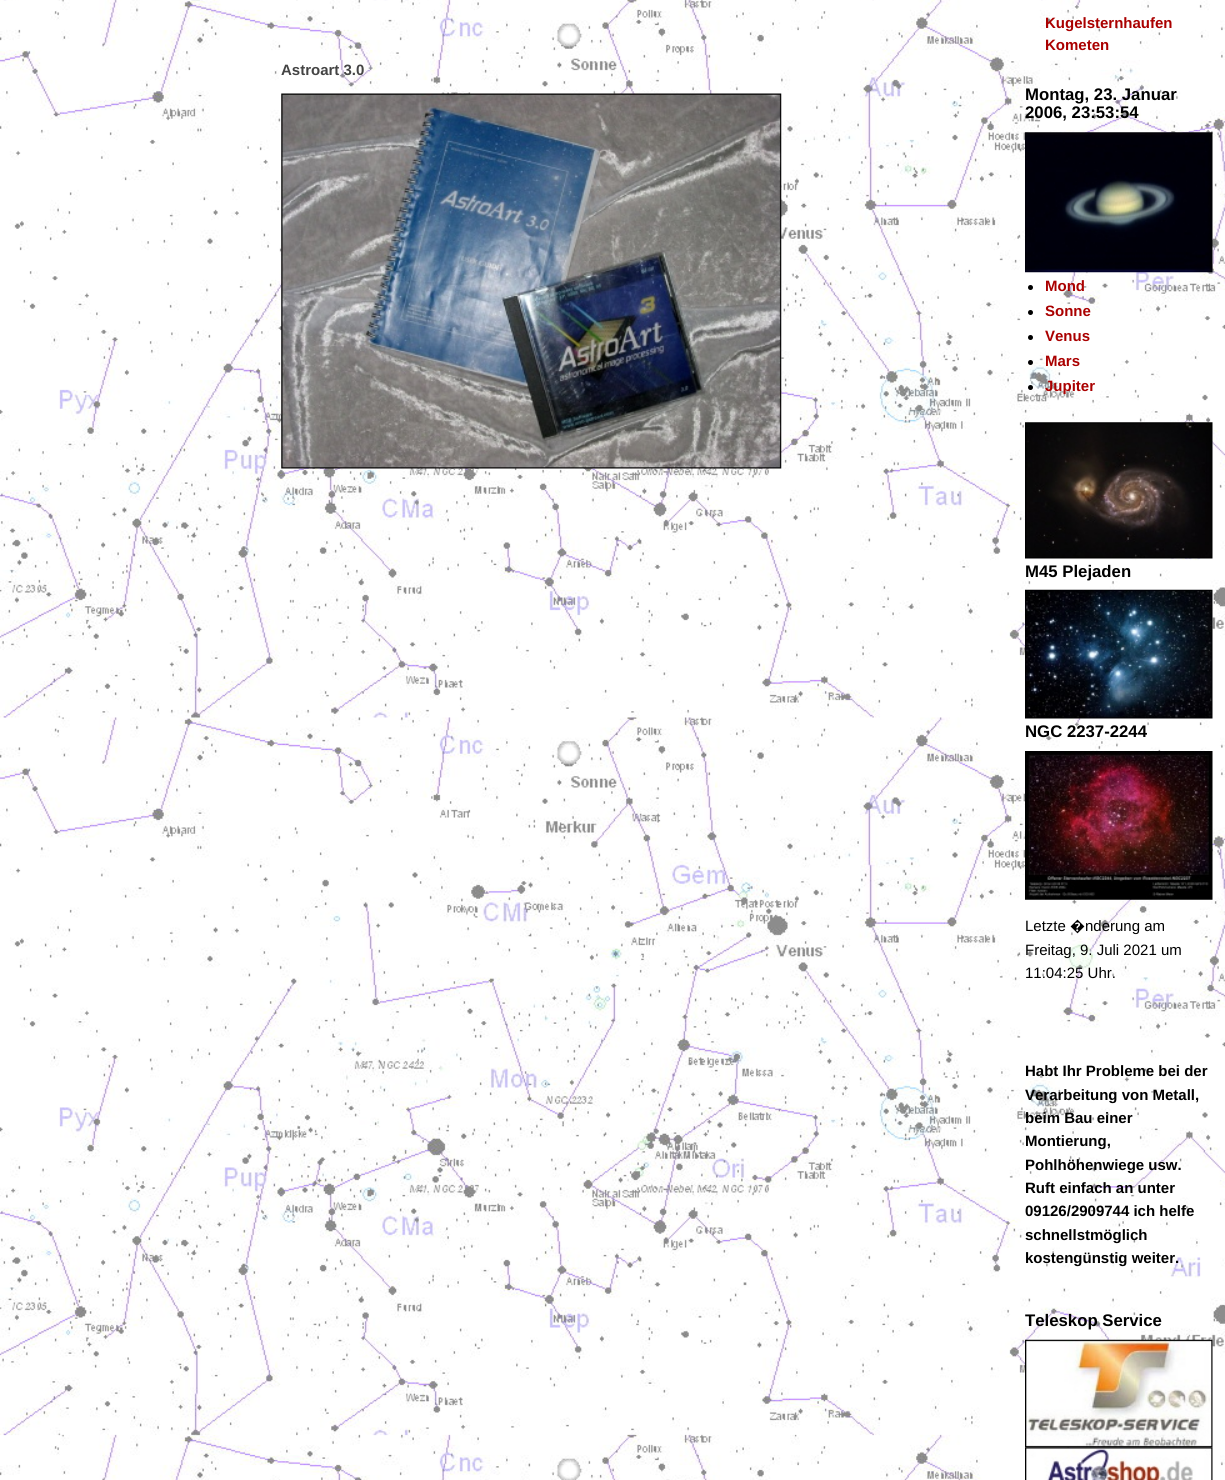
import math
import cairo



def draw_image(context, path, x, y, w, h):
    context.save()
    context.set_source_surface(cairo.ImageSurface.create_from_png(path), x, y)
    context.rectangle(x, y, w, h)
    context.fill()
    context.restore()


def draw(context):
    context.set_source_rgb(1, 1, 1)
    context.paint()
    draw_image(context, "images/1.png", 0, 0, 1225, 1480)
    draw_image(context, "images/2.png", 281, 93, 501, 376)
    draw_image(context, "images/3.png", 1025, 132, 188, 141)
    context.set_source_rgb(0, 0, 0)
    context.arc(1030.5, 287.5, 2.5, 0, 2 * math.pi)
    context.fill()
    context.arc(1030.5, 312.5, 2.5, 0, 2 * math.pi)
    context.fill()
    context.arc(1030.5, 337.5, 2.5, 0, 2 * math.pi)
    context.fill()
    context.arc(1030.5, 362.5, 2.5, 0, 2 * math.pi)
    context.fill()
    context.arc(1030.5, 387.5, 2.5, 0, 2 * math.pi)
    context.fill()
    draw_image(context, "images/4.png", 1025, 422, 188, 137)
    draw_image(context, "images/5.png", 1025, 589, 188, 130)
    draw_image(context, "images/6.png", 1025, 751, 188, 149)
    draw_image(context, "images/7.png", 1025, 1339, 188, 109)
    draw_image(context, "images/8.png", 1025, 1447, 188, 33)
    context.select_font_face("Liberation Sans", cairo.FontSlant.NORMAL, cairo.FontWeight.BOLD)
    context.set_font_size(15)
    context.set_source_rgb(68 / 255, 68 / 255, 68 / 255)
    context.move_to(281, 75)
    context.show_text("Astroart 3.0")
    context.set_source_rgb(170 / 255, 0, 0)
    context.move_to(1045, 28)
    context.show_text("Kugelsternhaufen")
    context.move_to(1045, 50)
    context.show_text("Kometen")
    context.set_font_size(16.75)
    context.set_source_rgb(0, 0, 0)
    context.move_to(1025, 100)
    context.show_text("Montag, 23. Januar")
    context.move_to(1025, 118)
    context.show_text("2006, 23:53:54")
    context.set_font_size(15)
    context.set_source_rgb(170 / 255, 0, 0)
    context.move_to(1045, 291)
    context.show_text("Mond")
    context.move_to(1045, 316)
    context.show_text("Sonne")
    context.move_to(1045, 341)
    context.show_text("Venus")
    context.move_to(1045, 366)
    context.show_text("Mars")
    context.move_to(1045, 391)
    context.show_text("Jupiter")
    context.set_font_size(16.75)
    context.set_source_rgb(0, 0, 0)
    context.move_to(1025, 577)
    context.show_text("M45 Plejaden")
    context.move_to(1025, 737)
    context.show_text("NGC 2237-2244")
    context.select_font_face("Liberation Sans")
    context.set_font_size(15)
    context.move_to(1025, 931)
    context.show_text("Letzte")
    context.select_font_face("Noto Sans")
    context.move_to(1070, 931)
    context.show_text("�")
    context.select_font_face("Liberation Sans")
    context.move_to(1085, 931)
    context.show_text("nderung am")
    context.move_to(1025, 955)
    context.show_text("Freitag, 9. Juli 2021 um")
    context.move_to(1025, 978)
    context.show_text("11:04:25 Uhr.")
    context.select_font_face("Liberation Sans", cairo.FontSlant.NORMAL, cairo.FontWeight.BOLD)
    context.move_to(1025, 1076)
    context.show_text("Habt Ihr Probleme bei der")
    context.move_to(1025, 1100)
    context.show_text("Verarbeitung von Metall,")
    context.move_to(1025, 1123)
    context.show_text("beim Bau einer")
    context.move_to(1025, 1146)
    context.show_text("Montierung,")
    context.move_to(1025, 1170)
    context.show_text("Pohlhöhenwiege usw.")
    context.move_to(1025, 1193)
    context.show_text("Ruft einfach an unter")
    context.move_to(1025, 1216)
    context.show_text("09126/2909744 ich helfe")
    context.move_to(1025, 1240)
    context.show_text("schnellstmöglich")
    context.move_to(1025, 1263)
    context.show_text("kostengünstig weiter.")
    context.set_font_size(16.75)
    context.move_to(1025, 1326)
    context.show_text("Teleskop Service")


surface = cairo.ImageSurface(cairo.Format.RGB24, 1225, 1480)
context = cairo.Context(surface)
options = cairo.FontOptions()
options.set_hint_metrics(cairo.HintMetrics.OFF)
options.set_hint_style(cairo.HintStyle.NONE)
context.set_font_options(options)
context.set_miter_limit(4)
draw(context)
surface.write_to_png("out.png")
